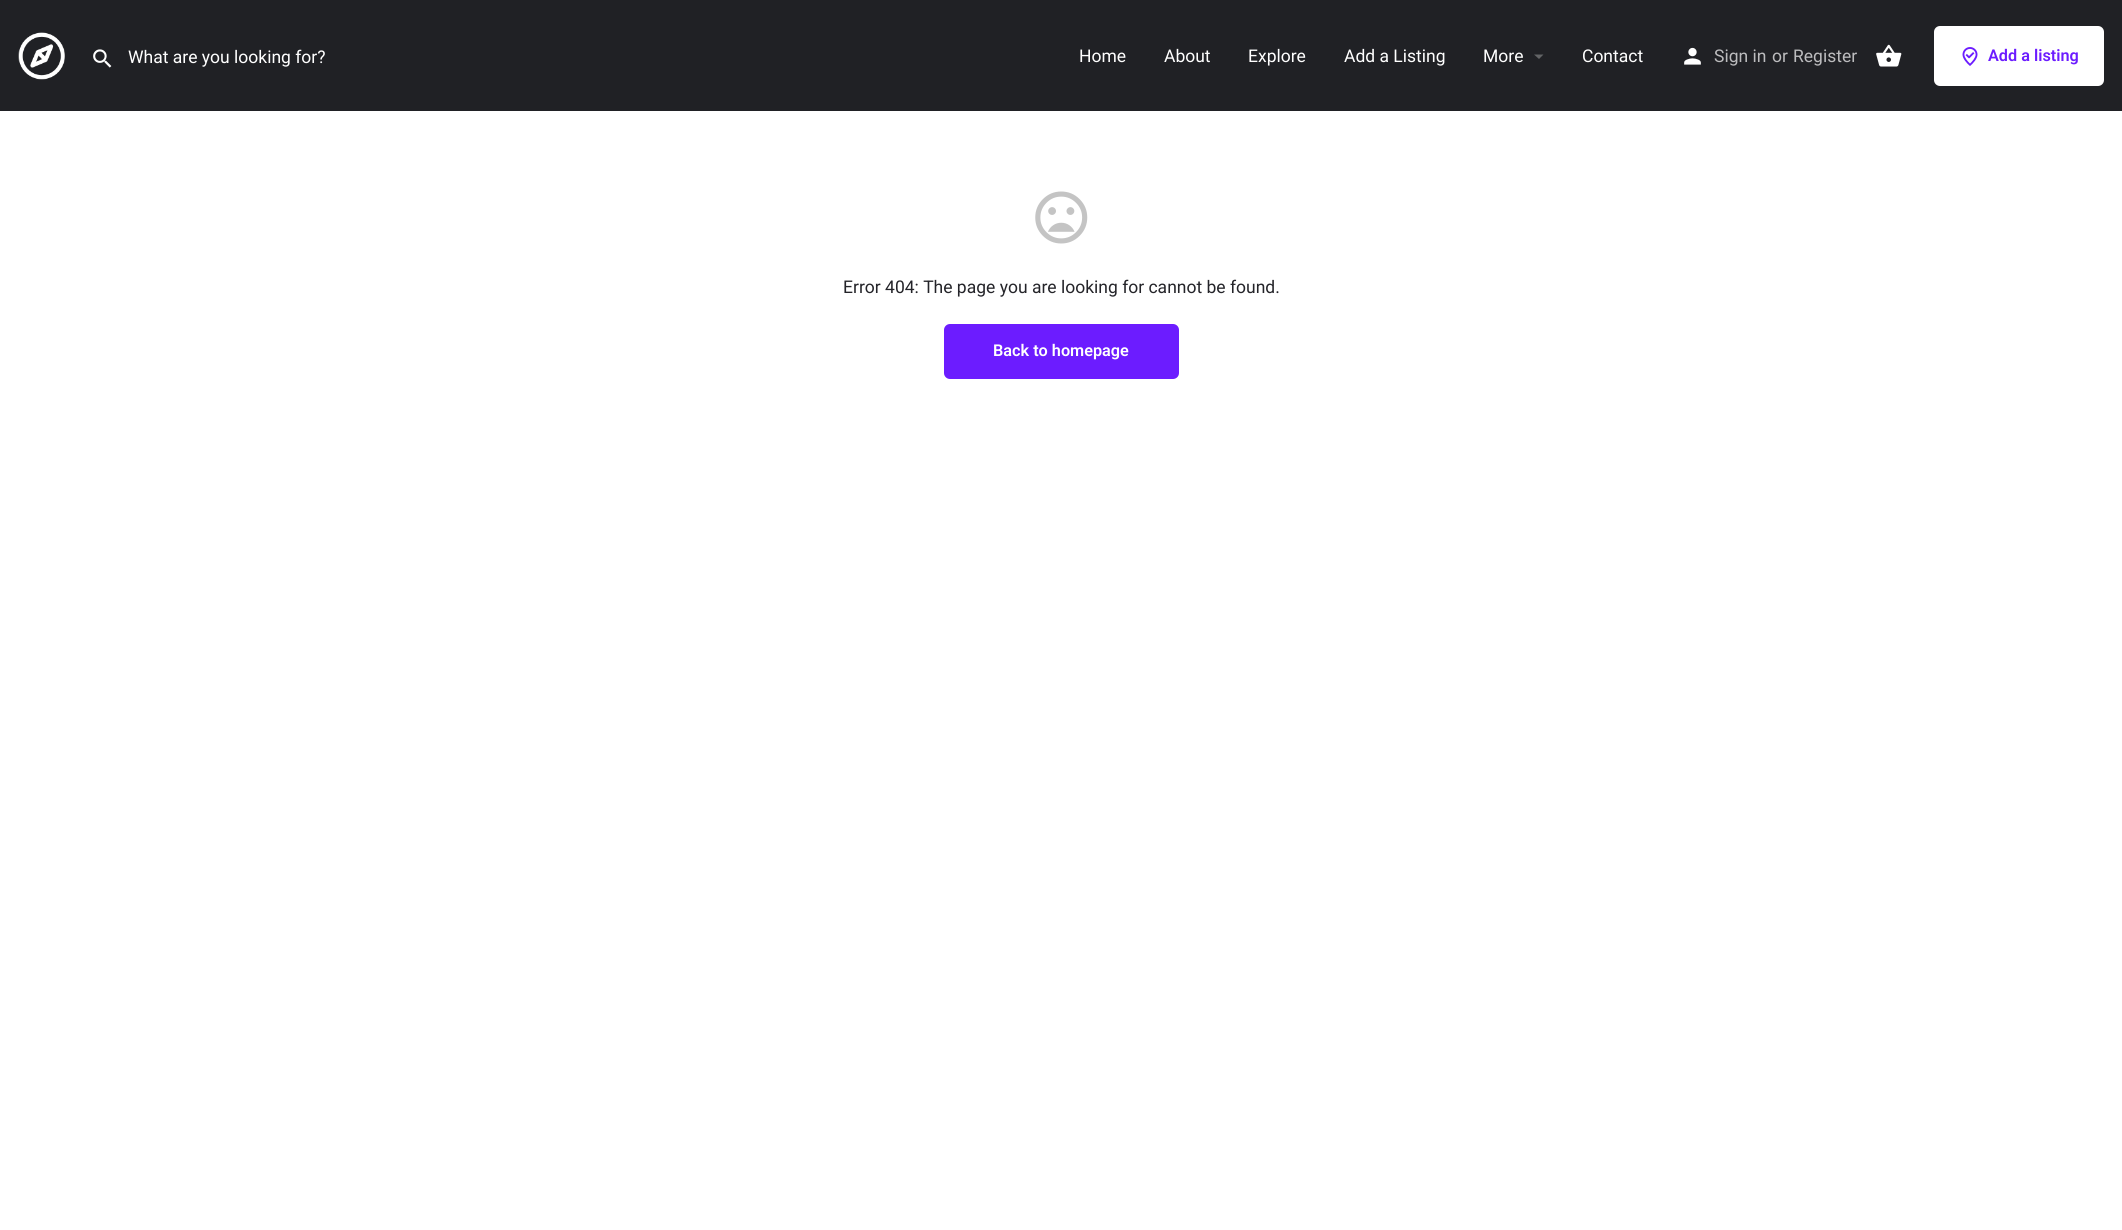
import math
import cairo



def rounded_rect(context, x, y, w, h, r):
    context.new_sub_path()
    for i, (u, v) in enumerate([(x + w - r, y + h - r), (x + r, y + h - r), (x + r, y + r), (x + w - r, y + r)]):
        context.arc(u, v, r, i * math.pi / 2, (i + 1) * math.pi / 2)
    context.close_path()


def draw_image(context, path, x, y, w, h):
    context.save()
    context.set_source_surface(cairo.ImageSurface.create_from_png(path), x, y)
    context.rectangle(x, y, w, h)
    context.fill()
    context.restore()


def draw(context):
    context.set_source_rgb(1, 1, 1)
    context.paint()
    context.set_source_rgb(32 / 255, 33 / 255, 37 / 255)
    context.rectangle(0, 0, 2122, 111)
    context.fill()
    draw_image(context, "images/1.png", 18, 32, 47, 48)
    draw_image(context, "images/2.png", 93, 49, 19, 19)
    context.set_source_rgb(99 / 255, 100 / 255, 102 / 255)
    context.new_path()
    context.move_to(1534, 54.5)
    context.line_to(1543.5, 54.5)
    context.line_to(1539, 59)
    context.close_path()
    context.fill()
    draw_image(context, "images/3.png", 1684, 47, 17, 18)
    draw_image(context, "images/4.png", 1876, 44, 26, 23)
    context.set_source_rgb(1, 1, 1)
    rounded_rect(context, 1934, 26, 170, 60, 6)
    context.fill()
    draw_image(context, "images/5.png", 1962, 47, 16, 19)
    draw_image(context, "images/6.png", 1035, 191, 53, 53)
    context.set_source_rgb(108 / 255, 28 / 255, 1)
    rounded_rect(context, 944, 324, 235, 55, 6)
    context.fill()
    context.select_font_face("Roboto")
    context.set_font_size(17.5)
    context.set_source_rgb(1, 1, 1)
    context.move_to(128, 63)
    context.show_text("What are you looking for?")
    context.move_to(1079, 62)
    context.show_text("Home")
    context.move_to(1164, 62)
    context.show_text("About")
    context.move_to(1248, 62)
    context.show_text("Explore")
    context.move_to(1344, 62)
    context.show_text("Add a Listing")
    context.move_to(1483, 62)
    context.show_text("More")
    context.move_to(1582, 62)
    context.show_text("Contact")
    context.set_source_rgb(188 / 255, 188 / 255, 190 / 255)
    context.move_to(1714, 62)
    context.show_text("Sign in")
    context.move_to(1772, 62)
    context.show_text("or")
    context.move_to(1793, 62)
    context.show_text("Register")
    context.select_font_face("Roboto SemiBold")
    context.set_font_size(16.25)
    context.set_source_rgb(108 / 255, 28 / 255, 1)
    context.move_to(1988, 61)
    context.show_text("Add a listing")
    context.select_font_face("Roboto")
    context.set_font_size(17.5)
    context.set_source_rgb(36 / 255, 36 / 255, 41 / 255)
    context.move_to(843, 293)
    context.show_text("Error 404: The page you are looking for cannot be found.")
    context.select_font_face("Roboto SemiBold")
    context.set_font_size(16.25)
    context.set_source_rgb(1, 1, 1)
    context.move_to(993, 356)
    context.show_text("Back to homepage")


surface = cairo.ImageSurface(cairo.Format.RGB24, 2122, 1230)
context = cairo.Context(surface)
options = cairo.FontOptions()
options.set_hint_metrics(cairo.HintMetrics.OFF)
options.set_hint_style(cairo.HintStyle.NONE)
context.set_font_options(options)
context.set_miter_limit(4)
draw(context)
surface.write_to_png("out.png")
